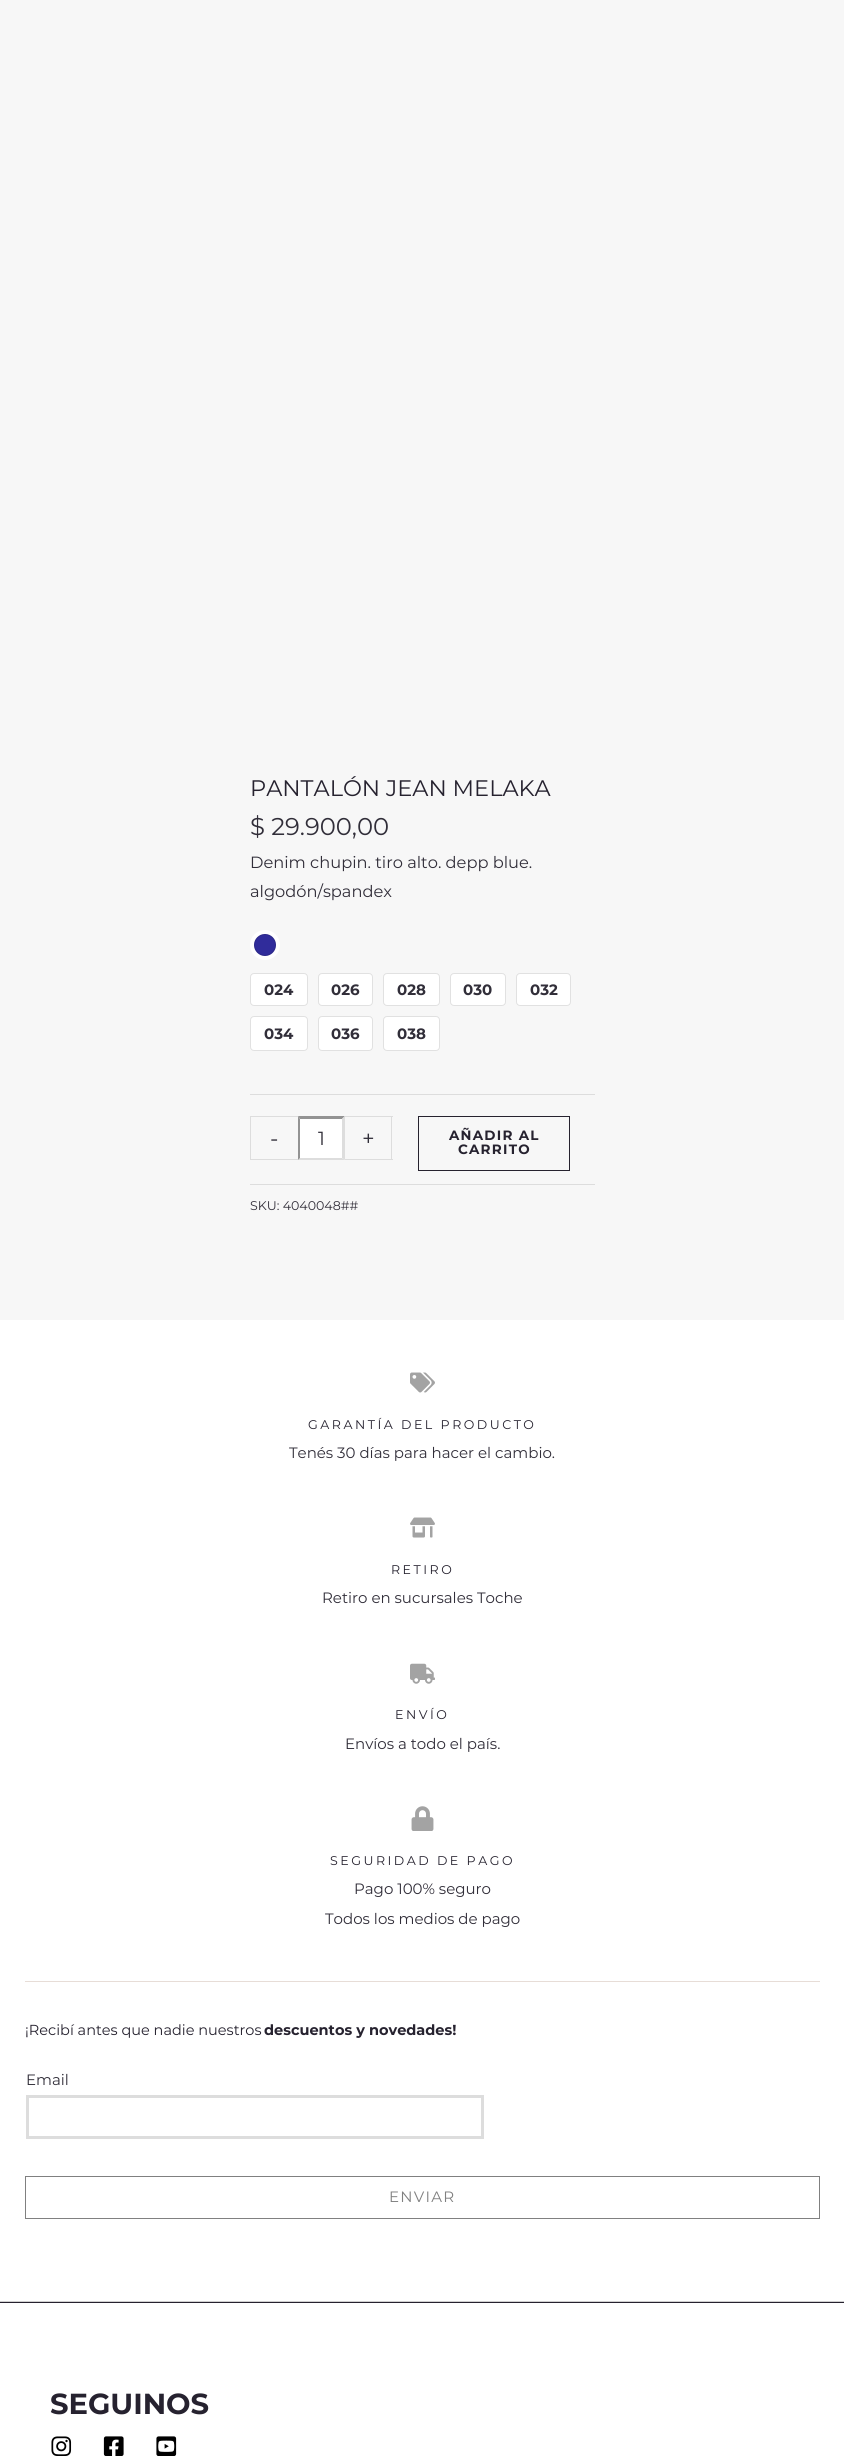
import math
import cairo



def draw_spaced(context, x, y, s, letter, word):
    context.move_to(x, y)
    for ch in s:
        context.show_text(ch)
        context.rel_move_to(letter + word * (ch == ' '), 0)


def rounded_rect(context, x, y, w, h, r):
    context.new_sub_path()
    for i, (u, v) in enumerate([(x + w - r, y + h - r), (x + r, y + h - r), (x + r, y + r), (x + w - r, y + r)]):
        context.arc(u, v, r, i * math.pi / 2, (i + 1) * math.pi / 2)
    context.close_path()


def draw_image(context, path, x, y, w, h):
    context.save()
    context.set_source_surface(cairo.ImageSurface.create_from_png(path), x, y)
    context.rectangle(x, y, w, h)
    context.fill()
    context.restore()


def draw(context):
    context.set_source_rgb(247 / 255, 247 / 255, 247 / 255)
    context.paint()
    context.set_source_rgb(221 / 255, 221 / 255, 221 / 255)
    context.rectangle(250, 1094, 345, 1)
    context.fill()
    context.set_source_rgb(1, 1, 1)
    context.arc(265, 945, 15, 0, 2 * math.pi)
    context.fill()
    context.set_source_rgb(48 / 255, 44 / 255, 155 / 255)
    context.arc(265, 945, 11, 0, 2 * math.pi)
    context.fill()
    context.arc(265, 945, 10.5, 0, 2 * math.pi)
    context.set_source_rgba(0, 0, 0, 0.12)
    context.set_line_width(1)
    context.stroke()
    context.set_source_rgb(1, 1, 1)
    rounded_rect(context, 250, 973, 58, 33, 4)
    context.fill()
    rounded_rect(context, 250.5, 973.5, 57, 32, 3.5)
    context.set_source_rgba(0, 0, 0, 0.12)
    context.stroke()
    context.set_source_rgb(1, 1, 1)
    rounded_rect(context, 318, 973, 55, 33, 4)
    context.fill()
    rounded_rect(context, 318.5, 973.5, 54, 32, 3.5)
    context.set_source_rgba(0, 0, 0, 0.12)
    context.stroke()
    context.set_source_rgb(1, 1, 1)
    rounded_rect(context, 383, 973, 57, 33, 4)
    context.fill()
    rounded_rect(context, 383.5, 973.5, 56, 32, 3.5)
    context.set_source_rgba(0, 0, 0, 0.12)
    context.stroke()
    context.set_source_rgb(1, 1, 1)
    rounded_rect(context, 450, 973, 56, 33, 4)
    context.fill()
    rounded_rect(context, 450.5, 973.5, 55, 32, 3.5)
    context.set_source_rgba(0, 0, 0, 0.12)
    context.stroke()
    context.set_source_rgb(1, 1, 1)
    rounded_rect(context, 516, 973, 55, 33, 4)
    context.fill()
    rounded_rect(context, 516.5, 973.5, 54, 32, 3.5)
    context.set_source_rgba(0, 0, 0, 0.12)
    context.stroke()
    context.set_source_rgb(1, 1, 1)
    rounded_rect(context, 250, 1016, 58, 35, 4)
    context.fill()
    rounded_rect(context, 250.5, 1016.5, 57, 34, 3.5)
    context.set_source_rgba(0, 0, 0, 0.12)
    context.stroke()
    context.set_source_rgb(1, 1, 1)
    rounded_rect(context, 318, 1016, 55, 35, 4)
    context.fill()
    rounded_rect(context, 318.5, 1016.5, 54, 34, 3.5)
    context.set_source_rgba(0, 0, 0, 0.12)
    context.stroke()
    context.set_source_rgb(1, 1, 1)
    rounded_rect(context, 383, 1016, 57, 35, 4)
    context.fill()
    rounded_rect(context, 383.5, 1016.5, 56, 34, 3.5)
    context.set_source_rgba(0, 0, 0, 0.12)
    context.stroke()
    context.set_source_rgb(221 / 255, 221 / 255, 221 / 255)
    context.rectangle(250, 1116, 48, 1)
    context.fill()
    context.rectangle(250, 1159, 48, 1)
    context.fill()
    context.rectangle(250, 1116, 1, 44)
    context.fill()
    context.set_source_rgb(1, 1, 1)
    context.rectangle(298, 1116, 47, 44)
    context.fill()
    context.set_source_rgb(147 / 255, 147 / 255, 147 / 255)
    context.new_path()
    context.move_to(298, 1116)
    context.line_to(345, 1116)
    context.line_to(342, 1119)
    context.line_to(300, 1119)
    context.close_path()
    context.fill()
    context.set_source_rgb(221 / 255, 221 / 255, 221 / 255)
    context.new_path()
    context.move_to(345, 1116)
    context.line_to(345, 1160)
    context.line_to(342, 1158)
    context.line_to(342, 1119)
    context.close_path()
    context.fill()
    context.new_path()
    context.move_to(345, 1160)
    context.line_to(298, 1160)
    context.line_to(300, 1158)
    context.line_to(342, 1158)
    context.close_path()
    context.fill()
    context.set_source_rgb(147 / 255, 147 / 255, 147 / 255)
    context.new_path()
    context.move_to(298, 1160)
    context.line_to(298, 1116)
    context.line_to(300, 1119)
    context.line_to(300, 1158)
    context.close_path()
    context.fill()
    context.set_source_rgb(221 / 255, 221 / 255, 221 / 255)
    context.rectangle(345, 1116, 48, 1)
    context.fill()
    context.rectangle(391, 1116, 1, 44)
    context.fill()
    context.rectangle(345, 1159, 48, 1)
    context.fill()
    context.rectangle(418.5, 1116.5, 151, 54)
    context.set_source_rgb(38 / 255, 34 / 255, 47 / 255)
    context.stroke()
    context.set_source_rgb(221 / 255, 221 / 255, 221 / 255)
    context.rectangle(250, 1184, 345, 1)
    context.fill()
    context.set_source_rgb(1, 1, 1)
    context.rectangle(0, 1320, 844, 981)
    context.fill()
    draw_image(context, "images/1.png", 410, 1372, 25, 21)
    draw_image(context, "images/2.png", 410, 1517, 25, 21)
    draw_image(context, "images/3.png", 410, 1663, 25, 21)
    draw_image(context, "images/4.png", 411, 1806, 23, 25)
    context.set_source_rgb(231 / 255, 221 / 255, 215 / 255)
    context.rectangle(25, 1981, 795, 1)
    context.fill()
    context.rectangle(27.5, 2096.5, 455, 41)
    context.set_source_rgb(221 / 255, 221 / 255, 221 / 255)
    context.set_line_width(3)
    context.stroke()
    context.rectangle(25.5, 2176.5, 794, 42)
    context.set_source_rgb(128 / 255, 128 / 255, 128 / 255)
    context.set_line_width(1)
    context.stroke()
    context.set_source_rgb(38 / 255, 34 / 255, 47 / 255)
    context.rectangle(0, 2302, 844, 1)
    context.fill()
    context.set_source_rgb(1, 1, 1)
    context.rectangle(0, 2303, 844, 153)
    context.fill()
    context.set_source_rgb(207 / 255, 207 / 255, 207 / 255)
    context.rectangle(0, 2301, 844, 1)
    context.fill()
    draw_image(context, "images/5.png", 51, 2436, 21, 20)
    draw_image(context, "images/6.png", 103, 2436, 21, 20)
    draw_image(context, "images/7.png", 156, 2436, 21, 20)
    context.select_font_face("Montserrat")
    context.set_font_size(22.5)
    context.set_source_rgb(38 / 255, 34 / 255, 47 / 255)
    context.move_to(250, 796)
    context.show_text("PANTALÓN JEAN MELAKA")
    context.set_font_size(24.25)
    context.set_source_rgb(49 / 255, 46 / 255, 57 / 255)
    context.move_to(250, 835)
    context.show_text("$ 29.900,00")
    context.set_font_size(16.25)
    context.move_to(250, 868)
    context.show_text("Denim chupin. tiro alto. depp blue.")
    context.move_to(250, 897)
    context.show_text("algodón/spandex")
    context.select_font_face("Montserrat", cairo.FontSlant.NORMAL, cairo.FontWeight.BOLD)
    context.set_font_size(15)
    context.move_to(264, 995)
    context.show_text("024")
    context.move_to(331, 995)
    context.show_text("026")
    context.move_to(397, 995)
    context.show_text("028")
    context.move_to(463, 995)
    context.show_text("030")
    context.move_to(530, 995)
    context.show_text("032")
    context.move_to(264, 1039)
    context.show_text("034")
    context.move_to(331, 1039)
    context.show_text("036")
    context.move_to(397, 1039)
    context.show_text("038")
    context.select_font_face("Montserrat")
    context.set_font_size(22)
    context.move_to(270, 1146)
    context.show_text("-")
    context.set_font_size(19)
    context.move_to(318, 1145)
    context.show_text("1")
    context.set_font_size(22)
    context.move_to(362, 1146)
    context.show_text("+")
    context.select_font_face("Montserrat", cairo.FontSlant.NORMAL, cairo.FontWeight.BOLD)
    context.set_font_size(13.5)
    context.set_source_rgb(38 / 255, 34 / 255, 47 / 255)
    draw_spaced(context, 449, 1140, "AÑADIR AL", 1.25, 0)
    draw_spaced(context, 458, 1154, "CARRITO", 1.25, 0)
    context.select_font_face("Montserrat")
    context.set_font_size(12.6)
    context.set_source_rgb(49 / 255, 46 / 255, 57 / 255)
    context.move_to(250, 1210)
    context.show_text("SKU: 4040048##")
    context.set_source_rgb(38 / 255, 34 / 255, 47 / 255)
    draw_spaced(context, 308, 1429, "GARANTÍA DEL PRODUCTO", 2.5, 0)
    context.set_font_size(15)
    context.set_source_rgb(49 / 255, 46 / 255, 57 / 255)
    context.move_to(289, 1458)
    context.show_text("Tenés 30 días para hacer el cambio.")
    context.set_font_size(12.6)
    context.set_source_rgb(38 / 255, 34 / 255, 47 / 255)
    draw_spaced(context, 391, 1574, "RETIRO", 2.5, 0)
    context.set_font_size(15)
    context.set_source_rgb(49 / 255, 46 / 255, 57 / 255)
    context.move_to(322, 1603)
    context.show_text("Retiro en sucursales Toche")
    context.set_font_size(12.6)
    context.set_source_rgb(38 / 255, 34 / 255, 47 / 255)
    draw_spaced(context, 395, 1719, "ENVÍO", 2.5, 0)
    context.set_font_size(15)
    context.set_source_rgb(49 / 255, 46 / 255, 57 / 255)
    context.move_to(345, 1749)
    context.show_text("Envíos a todo el país.")
    context.set_font_size(12.6)
    context.set_source_rgb(38 / 255, 34 / 255, 47 / 255)
    draw_spaced(context, 330, 1865, "SEGURIDAD DE PAGO", 2.5, 0)
    context.set_font_size(15)
    context.set_source_rgb(49 / 255, 46 / 255, 57 / 255)
    context.move_to(354, 1894)
    context.show_text("Pago 100% seguro")
    context.move_to(325, 1924)
    context.show_text("Todos los medios de pago")
    context.set_font_size(14.5)
    context.set_source_rgb(38 / 255, 34 / 255, 47 / 255)
    context.move_to(25, 2035)
    context.show_text("¡Recibí antes que nadie nuestros")
    context.select_font_face("Montserrat", cairo.FontSlant.NORMAL, cairo.FontWeight.BOLD)
    context.move_to(264, 2035)
    context.show_text("descuentos y novedades!")
    context.select_font_face("Montserrat")
    context.set_font_size(15)
    context.set_source_rgb(49 / 255, 46 / 255, 57 / 255)
    context.move_to(26, 2085)
    context.show_text("Email")
    context.set_source_rgb(128 / 255, 128 / 255, 128 / 255)
    draw_spaced(context, 389, 2202, "ENVIAR", 1.25, 0)
    context.select_font_face("Montserrat", cairo.FontSlant.NORMAL, cairo.FontWeight.BOLD)
    context.set_font_size(29)
    context.set_source_rgb(38 / 255, 34 / 255, 47 / 255)
    context.move_to(50, 2414)
    context.show_text("SEGUINOS")


surface = cairo.ImageSurface(cairo.Format.RGB24, 844, 2456)
context = cairo.Context(surface)
options = cairo.FontOptions()
options.set_hint_metrics(cairo.HintMetrics.OFF)
options.set_hint_style(cairo.HintStyle.NONE)
context.set_font_options(options)
context.set_miter_limit(4)
draw(context)
surface.write_to_png("out.png")
